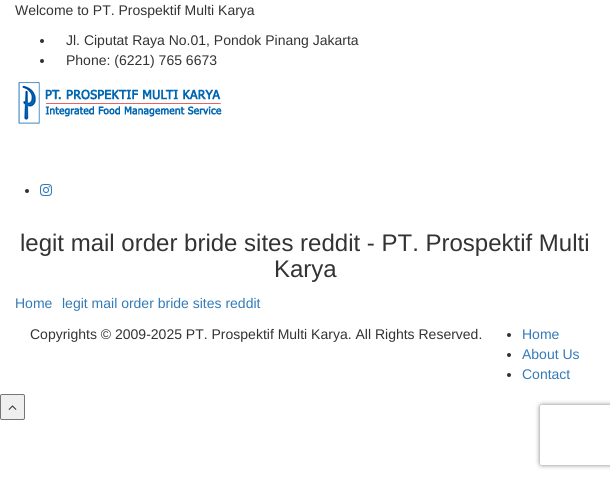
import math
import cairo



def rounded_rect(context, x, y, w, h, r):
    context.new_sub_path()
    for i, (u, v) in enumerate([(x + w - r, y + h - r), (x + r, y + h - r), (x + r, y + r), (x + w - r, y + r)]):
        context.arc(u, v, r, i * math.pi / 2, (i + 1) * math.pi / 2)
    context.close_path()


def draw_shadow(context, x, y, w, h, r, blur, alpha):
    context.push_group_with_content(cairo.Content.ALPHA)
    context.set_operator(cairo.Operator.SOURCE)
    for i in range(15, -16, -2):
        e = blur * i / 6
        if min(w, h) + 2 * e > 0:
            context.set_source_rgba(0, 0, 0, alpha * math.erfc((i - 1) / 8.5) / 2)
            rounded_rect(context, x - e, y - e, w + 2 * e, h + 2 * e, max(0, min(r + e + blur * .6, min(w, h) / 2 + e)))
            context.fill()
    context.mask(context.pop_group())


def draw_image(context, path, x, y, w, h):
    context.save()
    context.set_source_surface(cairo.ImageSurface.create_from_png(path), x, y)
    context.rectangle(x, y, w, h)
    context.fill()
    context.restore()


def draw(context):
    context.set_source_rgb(1, 1, 1)
    context.paint()
    context.set_source_rgb(51 / 255, 51 / 255, 51 / 255)
    context.arc(42, 41, 2, 0, 2 * math.pi)
    context.fill()
    context.arc(42, 61, 2, 0, 2 * math.pi)
    context.fill()
    draw_image(context, "images/1.png", 18, 82, 204, 42)
    context.arc(27, 191, 2, 0, 2 * math.pi)
    context.fill()
    draw_image(context, "images/2.png", 40, 184, 12, 12)
    context.arc(509, 335, 2, 0, 2 * math.pi)
    context.fill()
    context.arc(509, 355, 2, 0, 2 * math.pi)
    context.fill()
    context.arc(509, 375, 2, 0, 2 * math.pi)
    context.fill()
    context.set_source_rgb(239 / 255, 239 / 255, 239 / 255)
    rounded_rect(context, 0.5, 394.5, 24, 25, 1.5)
    context.fill_preserve()
    context.set_source_rgb(118 / 255, 118 / 255, 118 / 255)
    context.set_line_width(1)
    context.stroke()
    draw_image(context, "images/3.png", 8, 405, 9, 5)
    context.save()
    context.set_fill_rule(cairo.FillRule.EVEN_ODD)
    context.new_path()
    context.move_to(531, 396)
    context.line_to(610, 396)
    context.line_to(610, 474)
    context.line_to(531, 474)
    context.close_path()
    context.move_to(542, 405)
    context.line_to(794, 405)
    context.curve_to(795, 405, 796, 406, 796, 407)
    context.line_to(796, 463)
    context.curve_to(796, 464, 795, 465, 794, 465)
    context.line_to(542, 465)
    context.curve_to(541, 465, 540, 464, 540, 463)
    context.line_to(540, 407)
    context.curve_to(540, 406, 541, 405, 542, 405)
    context.close_path()
    context.clip()
    context.set_source_rgb(128 / 255, 128 / 255, 128 / 255)
    draw_shadow(context, 540, 405, 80, 60, 2, 2.5, 1)
    context.restore()
    context.select_font_face("Liberation Sans")
    context.set_font_size(14)
    context.set_source_rgb(51 / 255, 51 / 255, 51 / 255)
    context.move_to(15, 15)
    context.show_text("Welcome to PT. Prospektif Multi Karya")
    context.move_to(66, 45)
    context.show_text("Jl. Ciputat Raya No.01, Pondok Pinang Jakarta")
    context.move_to(66, 65)
    context.show_text("Phone: (6221) 765 6673")
    context.set_font_size(24)
    context.move_to(20, 251)
    context.show_text("legit mail order bride sites reddit - PT. Prospektif Multi")
    context.move_to(274, 277)
    context.show_text("Karya")
    context.set_font_size(14)
    context.set_source_rgb(51 / 255, 122 / 255, 183 / 255)
    context.move_to(15, 308)
    context.show_text("Home")
    context.move_to(62, 308)
    context.show_text("legit mail order bride sites reddit")
    context.set_source_rgb(51 / 255, 51 / 255, 51 / 255)
    context.move_to(30, 339)
    context.show_text("Copyrights © 2009-2025 PT. Prospektif Multi Karya. All Rights Reserved.")
    context.set_source_rgb(51 / 255, 122 / 255, 183 / 255)
    context.move_to(522, 339)
    context.show_text("Home")
    context.move_to(522, 359)
    context.show_text("About Us")
    context.move_to(522, 379)
    context.show_text("Contact")


surface = cairo.ImageSurface(cairo.Format.RGB24, 610, 479)
context = cairo.Context(surface)
options = cairo.FontOptions()
options.set_hint_metrics(cairo.HintMetrics.OFF)
options.set_hint_style(cairo.HintStyle.NONE)
context.set_font_options(options)
context.set_miter_limit(4)
draw(context)
surface.write_to_png("out.png")
